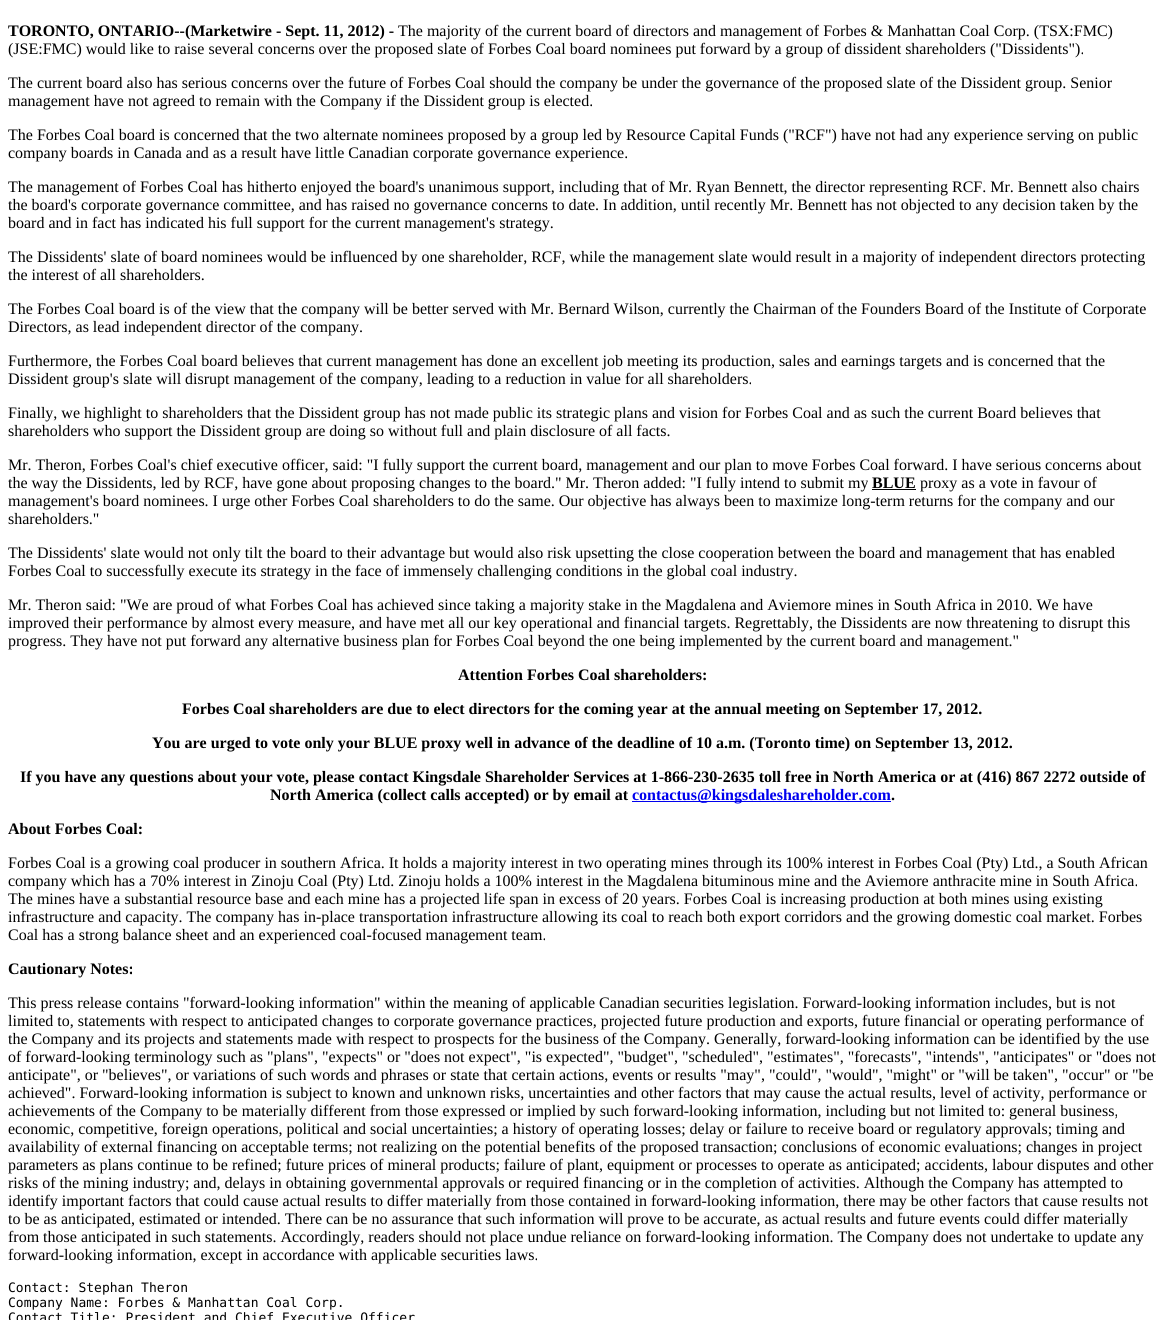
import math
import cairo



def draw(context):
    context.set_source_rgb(1, 1, 1)
    context.paint()
    context.set_source_rgb(0, 0, 0)
    context.rectangle(872, 489, 44, 1)
    context.fill()
    context.set_source_rgb(0, 0, 238 / 255)
    context.rectangle(632, 801, 259, 1)
    context.fill()
    context.select_font_face("Liberation Serif", cairo.FontSlant.NORMAL, cairo.FontWeight.BOLD)
    context.set_font_size(16)
    context.set_source_rgb(0, 0, 0)
    context.move_to(8, 36)
    context.show_text("TORONTO, ONTARIO--(Marketwire - Sept. 11, 2012) -")
    context.select_font_face("Liberation Serif")
    context.move_to(398, 36)
    context.show_text("The majority of the current board of directors and management of Forbes & Manhattan Coal Corp. (TSX:FMC)")
    context.move_to(8, 54)
    context.show_text("(JSE:FMC) would like to raise several concerns over the proposed slate of Forbes Coal board nominees put forward by a group of dissident shareholders (\"Dissidents\").")
    context.move_to(8, 88)
    context.show_text("The current board also has serious concerns over the future of Forbes Coal should the company be under the governance of the proposed slate of the Dissident group. Senior")
    context.move_to(8, 106)
    context.show_text("management have not agreed to remain with the Company if the Dissident group is elected.")
    context.move_to(8, 140)
    context.show_text("The Forbes Coal board is concerned that the two alternate nominees proposed by a group led by Resource Capital Funds (\"RCF\") have not had any experience serving on public")
    context.move_to(8, 158)
    context.show_text("company boards in Canada and as a result have little Canadian corporate governance experience.")
    context.move_to(8, 192)
    context.show_text("The management of Forbes Coal has hitherto enjoyed the board's unanimous support, including that of Mr. Ryan Bennett, the director representing RCF. Mr. Bennett also chairs")
    context.move_to(8, 210)
    context.show_text("the board's corporate governance committee, and has raised no governance concerns to date. In addition, until recently Mr. Bennett has not objected to any decision taken by the")
    context.move_to(8, 228)
    context.show_text("board and in fact has indicated his full support for the current management's strategy.")
    context.move_to(8, 262)
    context.show_text("The Dissidents' slate of board nominees would be influenced by one shareholder, RCF, while the management slate would result in a majority of independent directors protecting")
    context.move_to(8, 280)
    context.show_text("the interest of all shareholders.")
    context.move_to(8, 314)
    context.show_text("The Forbes Coal board is of the view that the company will be better served with Mr. Bernard Wilson, currently the Chairman of the Founders Board of the Institute of Corporate")
    context.move_to(8, 332)
    context.show_text("Directors, as lead independent director of the company.")
    context.move_to(8, 366)
    context.show_text("Furthermore, the Forbes Coal board believes that current management has done an excellent job meeting its production, sales and earnings targets and is concerned that the")
    context.move_to(8, 384)
    context.show_text("Dissident group's slate will disrupt management of the company, leading to a reduction in value for all shareholders.")
    context.move_to(8, 418)
    context.show_text("Finally, we highlight to shareholders that the Dissident group has not made public its strategic plans and vision for Forbes Coal and as such the current Board believes that")
    context.move_to(8, 436)
    context.show_text("shareholders who support the Dissident group are doing so without full and plain disclosure of all facts.")
    context.move_to(8, 470)
    context.show_text("Mr. Theron, Forbes Coal's chief executive officer, said: \"I fully support the current board, management and our plan to move Forbes Coal forward. I have serious concerns about")
    context.move_to(8, 488)
    context.show_text("the way the Dissidents, led by RCF, have gone about proposing changes to the board.\" Mr. Theron added: \"I fully intend to submit my")
    context.select_font_face("Liberation Serif", cairo.FontSlant.NORMAL, cairo.FontWeight.BOLD)
    context.move_to(872, 488)
    context.show_text("BLUE")
    context.select_font_face("Liberation Serif")
    context.move_to(920, 488)
    context.show_text("proxy as a vote in favour of")
    context.move_to(8, 506)
    context.show_text("management's board nominees. I urge other Forbes Coal shareholders to do the same. Our objective has always been to maximize long-term returns for the company and our")
    context.move_to(8, 524)
    context.show_text("shareholders.\"")
    context.move_to(8, 558)
    context.show_text("The Dissidents' slate would not only tilt the board to their advantage but would also risk upsetting the close cooperation between the board and management that has enabled")
    context.move_to(8, 576)
    context.show_text("Forbes Coal to successfully execute its strategy in the face of immensely challenging conditions in the global coal industry.")
    context.move_to(8, 610)
    context.show_text("Mr. Theron said: \"We are proud of what Forbes Coal has achieved since taking a majority stake in the Magdalena and Aviemore mines in South Africa in 2010. We have")
    context.move_to(8, 628)
    context.show_text("improved their performance by almost every measure, and have met all our key operational and financial targets. Regrettably, the Dissidents are now threatening to disrupt this")
    context.move_to(8, 646)
    context.show_text("progress. They have not put forward any alternative business plan for Forbes Coal beyond the one being implemented by the current board and management.\"")
    context.select_font_face("Liberation Serif", cairo.FontSlant.NORMAL, cairo.FontWeight.BOLD)
    context.move_to(458, 680)
    context.show_text("Attention Forbes Coal shareholders:")
    context.move_to(182, 714)
    context.show_text("Forbes Coal shareholders are due to elect directors for the coming year at the annual meeting on September 17, 2012.")
    context.move_to(152, 748)
    context.show_text("You are urged to vote only your BLUE proxy well in advance of the deadline of 10 a.m. (Toronto time) on September 13, 2012.")
    context.move_to(20, 782)
    context.show_text("If you have any questions about your vote, please contact Kingsdale Shareholder Services at 1-866-230-2635 toll free in North America or at (416) 867 2272 outside of")
    context.move_to(270, 800)
    context.show_text("North America (collect calls accepted) or by email at")
    context.set_source_rgb(0, 0, 238 / 255)
    context.move_to(632, 800)
    context.show_text("contactus@kingsdaleshareholder.com")
    context.set_source_rgb(0, 0, 0)
    context.move_to(891, 800)
    context.show_text(".")
    context.move_to(8, 834)
    context.show_text("About Forbes Coal:")
    context.select_font_face("Liberation Serif")
    context.move_to(8, 868)
    context.show_text("Forbes Coal is a growing coal producer in southern Africa. It holds a majority interest in two operating mines through its 100% interest in Forbes Coal (Pty) Ltd., a South African")
    context.move_to(8, 886)
    context.show_text("company which has a 70% interest in Zinoju Coal (Pty) Ltd. Zinoju holds a 100% interest in the Magdalena bituminous mine and the Aviemore anthracite mine in South Africa.")
    context.move_to(8, 904)
    context.show_text("The mines have a substantial resource base and each mine has a projected life span in excess of 20 years. Forbes Coal is increasing production at both mines using existing")
    context.move_to(8, 922)
    context.show_text("infrastructure and capacity. The company has in-place transportation infrastructure allowing its coal to reach both export corridors and the growing domestic coal market. Forbes")
    context.move_to(8, 940)
    context.show_text("Coal has a strong balance sheet and an experienced coal-focused management team.")
    context.select_font_face("Liberation Serif", cairo.FontSlant.NORMAL, cairo.FontWeight.BOLD)
    context.move_to(8, 974)
    context.show_text("Cautionary Notes:")
    context.select_font_face("Liberation Serif")
    context.move_to(8, 1008)
    context.show_text("This press release contains \"forward-looking information\" within the meaning of applicable Canadian securities legislation. Forward-looking information includes, but is not")
    context.move_to(8, 1026)
    context.show_text("limited to, statements with respect to anticipated changes to corporate governance practices, projected future production and exports, future financial or operating performance of")
    context.move_to(8, 1044)
    context.show_text("the Company and its projects and statements made with respect to prospects for the business of the Company. Generally, forward-looking information can be identified by the use")
    context.move_to(8, 1062)
    context.show_text("of forward-looking terminology such as \"plans\", \"expects\" or \"does not expect\", \"is expected\", \"budget\", \"scheduled\", \"estimates\", \"forecasts\", \"intends\", \"anticipates\" or \"does not")
    context.move_to(8, 1080)
    context.show_text("anticipate\", or \"believes\", or variations of such words and phrases or state that certain actions, events or results \"may\", \"could\", \"would\", \"might\" or \"will be taken\", \"occur\" or \"be")
    context.move_to(8, 1098)
    context.show_text("achieved\". Forward-looking information is subject to known and unknown risks, uncertainties and other factors that may cause the actual results, level of activity, performance or")
    context.move_to(8, 1116)
    context.show_text("achievements of the Company to be materially different from those expressed or implied by such forward-looking information, including but not limited to: general business,")
    context.move_to(8, 1134)
    context.show_text("economic, competitive, foreign operations, political and social uncertainties; a history of operating losses; delay or failure to receive board or regulatory approvals; timing and")
    context.move_to(8, 1152)
    context.show_text("availability of external financing on acceptable terms; not realizing on the potential benefits of the proposed transaction; conclusions of economic evaluations; changes in project")
    context.move_to(8, 1170)
    context.show_text("parameters as plans continue to be refined; future prices of mineral products; failure of plant, equipment or processes to operate as anticipated; accidents, labour disputes and other")
    context.move_to(8, 1188)
    context.show_text("risks of the mining industry; and, delays in obtaining governmental approvals or required financing or in the completion of activities. Although the Company has attempted to")
    context.move_to(8, 1206)
    context.show_text("identify important factors that could cause actual results to differ materially from those contained in forward-looking information, there may be other factors that cause results not")
    context.move_to(8, 1224)
    context.show_text("to be as anticipated, estimated or intended. There can be no assurance that such information will prove to be accurate, as actual results and future events could differ materially")
    context.move_to(8, 1242)
    context.show_text("from those anticipated in such statements. Accordingly, readers should not place undue reliance on forward-looking information. The Company does not undertake to update any")
    context.move_to(8, 1260)
    context.show_text("forward-looking information, except in accordance with applicable securities laws.")
    context.select_font_face("DejaVu Sans Mono")
    context.set_font_size(13)
    context.move_to(8, 1292)
    context.show_text("Contact: Stephan Theron")
    context.move_to(8, 1307)
    context.show_text("Company Name: Forbes & Manhattan Coal Corp.")
    context.move_to(8, 1322)
    context.show_text("Contact Title: President and Chief Executive Officer")


surface = cairo.ImageSurface(cairo.Format.RGB24, 1165, 1320)
context = cairo.Context(surface)
options = cairo.FontOptions()
options.set_hint_metrics(cairo.HintMetrics.OFF)
options.set_hint_style(cairo.HintStyle.NONE)
context.set_font_options(options)
context.set_miter_limit(4)
draw(context)
surface.write_to_png("out.png")
